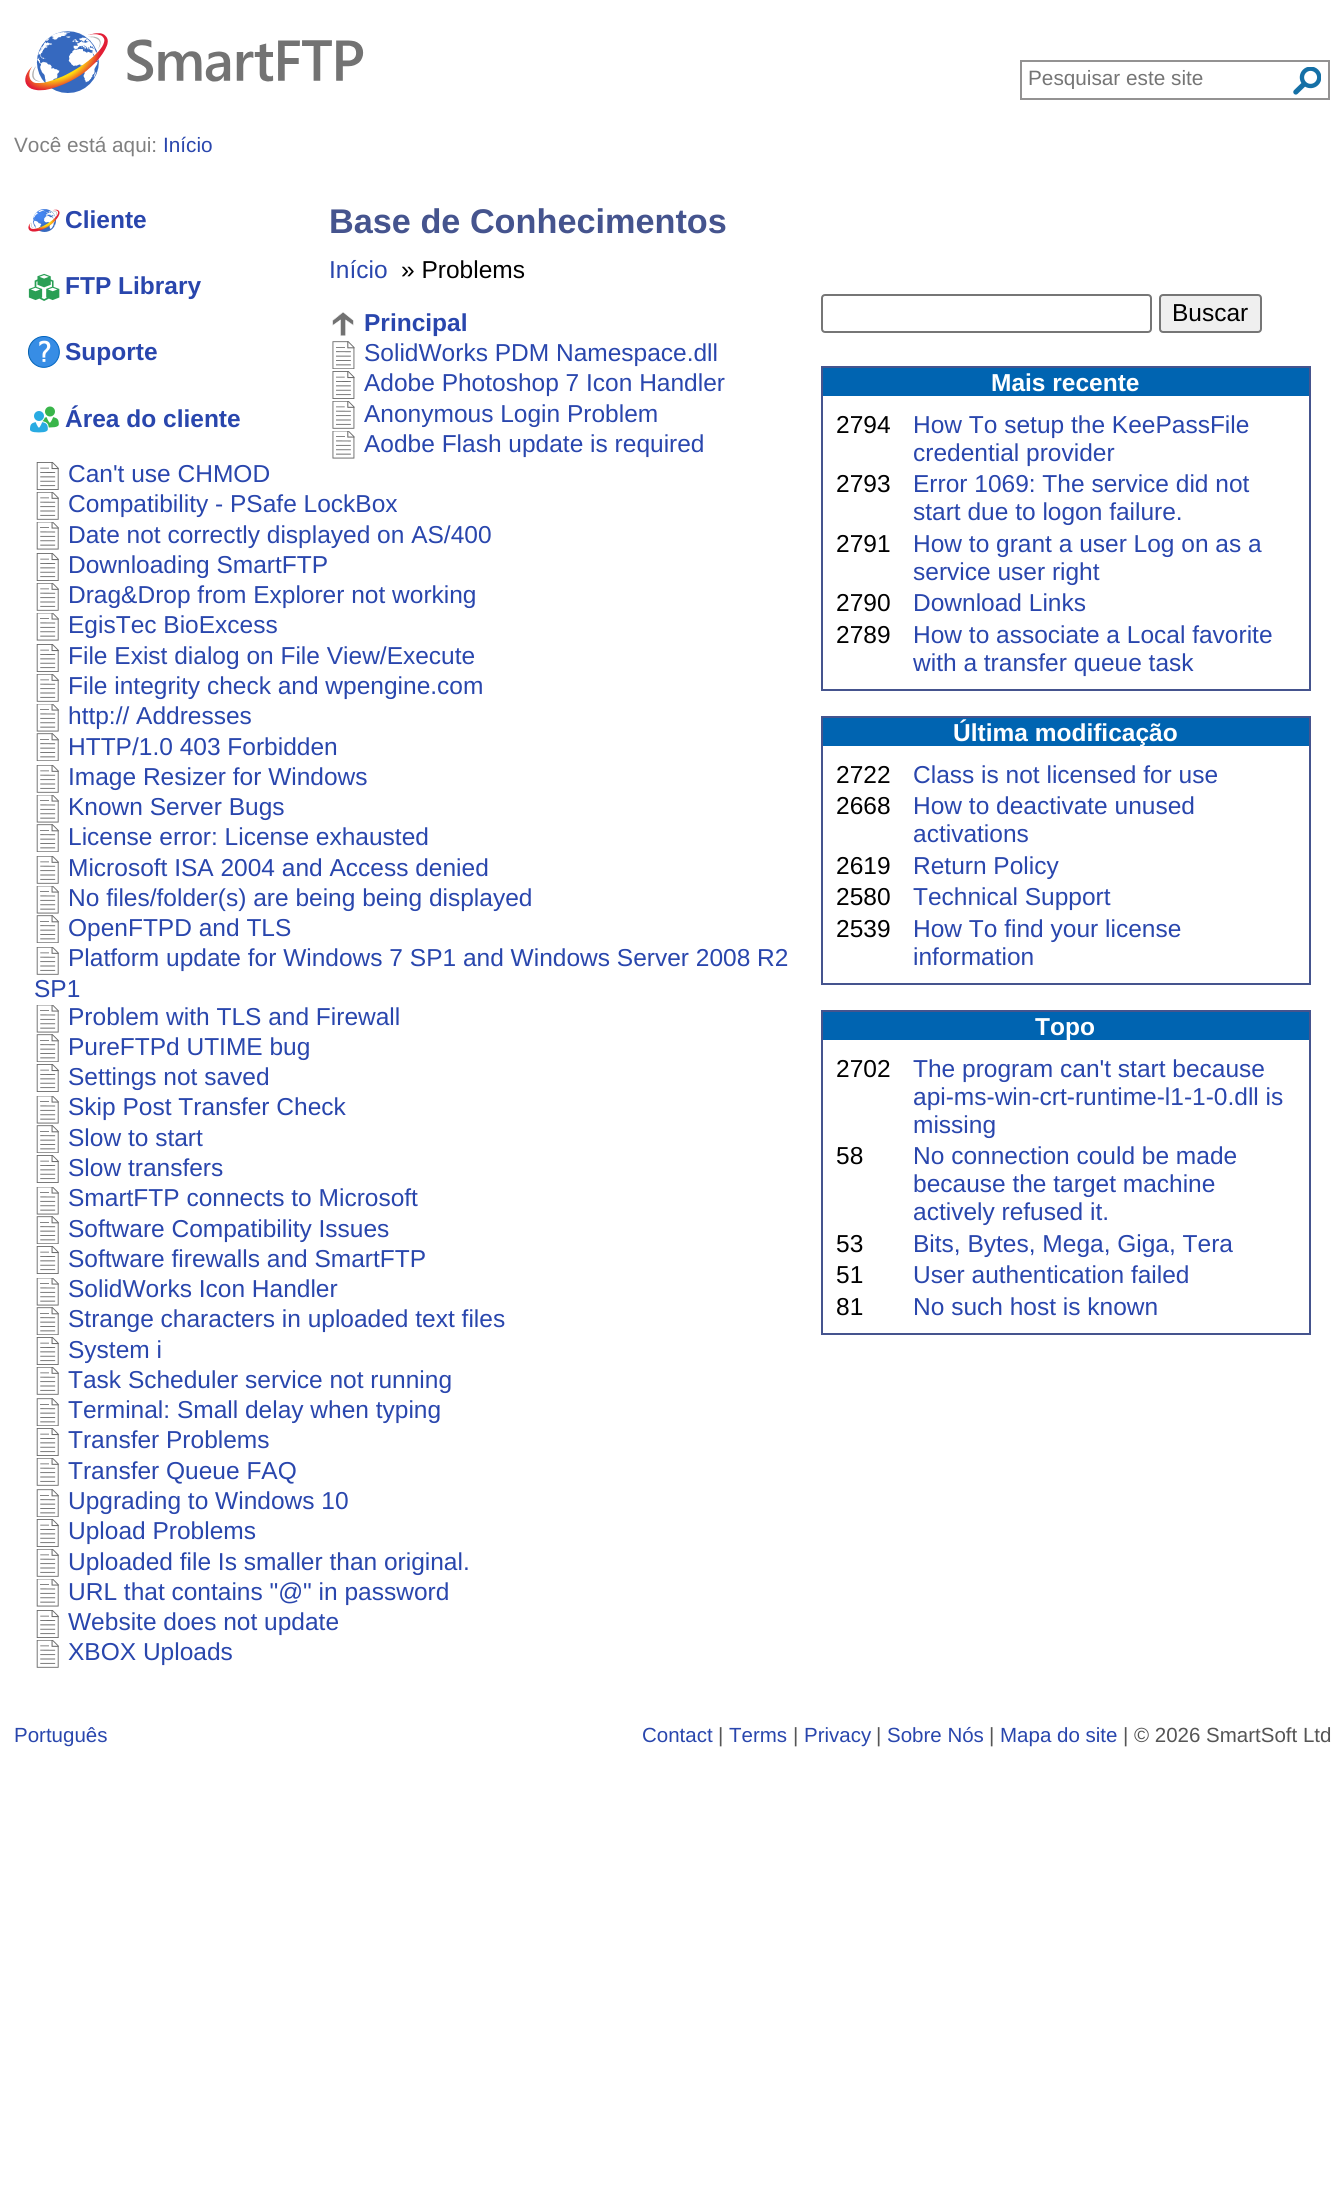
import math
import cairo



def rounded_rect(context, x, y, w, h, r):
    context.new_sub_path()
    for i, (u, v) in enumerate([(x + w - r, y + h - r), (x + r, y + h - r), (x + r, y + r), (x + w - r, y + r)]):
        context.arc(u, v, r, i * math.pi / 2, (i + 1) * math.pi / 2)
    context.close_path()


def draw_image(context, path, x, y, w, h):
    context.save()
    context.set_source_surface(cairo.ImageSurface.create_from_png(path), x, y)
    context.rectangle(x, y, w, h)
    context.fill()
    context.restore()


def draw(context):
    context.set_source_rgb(1, 1, 1)
    context.paint()
    draw_image(context, "images/1.png", 25, 31, 339, 62)
    context.rectangle(1021, 61, 308, 38)
    context.set_source_rgb(147 / 255, 146 / 255, 146 / 255)
    context.stroke()
    draw_image(context, "images/2.png", 1293, 67, 28, 28)
    draw_image(context, "images/3.png", 332, 312, 22, 24)
    draw_image(context, "images/4.png", 332, 341, 23, 28)
    draw_image(context, "images/5.png", 332, 371, 23, 28)
    draw_image(context, "images/6.png", 332, 401, 23, 28)
    draw_image(context, "images/7.png", 332, 431, 23, 28)
    draw_image(context, "images/8.png", 36, 462, 23, 28)
    draw_image(context, "images/9.png", 36, 492, 23, 28)
    draw_image(context, "images/10.png", 36, 522, 23, 28)
    draw_image(context, "images/8.png", 36, 553, 23, 28)
    draw_image(context, "images/9.png", 36, 583, 23, 28)
    draw_image(context, "images/10.png", 36, 613, 23, 28)
    draw_image(context, "images/8.png", 36, 644, 23, 28)
    draw_image(context, "images/9.png", 36, 674, 23, 28)
    draw_image(context, "images/10.png", 36, 704, 23, 28)
    draw_image(context, "images/11.png", 36, 733, 23, 28)
    draw_image(context, "images/9.png", 36, 765, 23, 28)
    draw_image(context, "images/10.png", 36, 795, 23, 28)
    draw_image(context, "images/11.png", 36, 824, 23, 28)
    draw_image(context, "images/9.png", 36, 856, 23, 28)
    draw_image(context, "images/10.png", 36, 886, 23, 28)
    draw_image(context, "images/11.png", 36, 915, 23, 28)
    draw_image(context, "images/9.png", 36, 947, 23, 28)
    draw_image(context, "images/10.png", 36, 1005, 23, 28)
    draw_image(context, "images/11.png", 36, 1034, 23, 28)
    draw_image(context, "images/8.png", 36, 1064, 23, 28)
    draw_image(context, "images/10.png", 36, 1096, 23, 28)
    draw_image(context, "images/11.png", 36, 1125, 23, 28)
    draw_image(context, "images/8.png", 36, 1155, 23, 28)
    draw_image(context, "images/10.png", 36, 1187, 23, 28)
    draw_image(context, "images/11.png", 36, 1216, 23, 28)
    draw_image(context, "images/8.png", 36, 1246, 23, 28)
    draw_image(context, "images/10.png", 36, 1278, 23, 28)
    draw_image(context, "images/11.png", 36, 1307, 23, 28)
    draw_image(context, "images/8.png", 36, 1337, 23, 28)
    draw_image(context, "images/9.png", 36, 1367, 23, 28)
    draw_image(context, "images/11.png", 36, 1398, 23, 28)
    draw_image(context, "images/8.png", 36, 1428, 23, 28)
    draw_image(context, "images/9.png", 36, 1458, 23, 28)
    draw_image(context, "images/11.png", 36, 1489, 23, 28)
    draw_image(context, "images/8.png", 36, 1519, 23, 28)
    draw_image(context, "images/9.png", 36, 1549, 23, 28)
    draw_image(context, "images/10.png", 36, 1579, 23, 28)
    draw_image(context, "images/8.png", 36, 1610, 23, 28)
    draw_image(context, "images/9.png", 36, 1640, 23, 28)
    rounded_rect(context, 822, 295, 329, 37, 3)
    context.set_source_rgb(118 / 255, 118 / 255, 118 / 255)
    context.stroke()
    context.set_source_rgb(239 / 255, 239 / 255, 239 / 255)
    rounded_rect(context, 1160, 295, 101, 37, 3)
    context.fill_preserve()
    context.set_source_rgb(118 / 255, 118 / 255, 118 / 255)
    context.stroke()
    context.rectangle(822, 367, 488, 323)
    context.set_source_rgb(69 / 255, 84 / 255, 142 / 255)
    context.stroke()
    context.set_source_rgb(0, 100 / 255, 177 / 255)
    context.rectangle(823, 368, 486, 28)
    context.fill()
    context.rectangle(822, 717, 488, 267)
    context.set_source_rgb(69 / 255, 84 / 255, 142 / 255)
    context.stroke()
    context.set_source_rgb(0, 100 / 255, 177 / 255)
    context.rectangle(823, 718, 486, 28)
    context.fill()
    context.rectangle(822, 1011, 488, 323)
    context.set_source_rgb(69 / 255, 84 / 255, 142 / 255)
    context.stroke()
    context.set_source_rgb(0, 100 / 255, 177 / 255)
    context.rectangle(823, 1012, 486, 28)
    context.fill()
    draw_image(context, "images/12.png", 28, 209, 32, 23)
    draw_image(context, "images/13.png", 28, 273, 32, 28)
    draw_image(context, "images/14.png", 28, 336, 32, 32)
    draw_image(context, "images/15.png", 30, 406, 29, 27)
    context.save()
    context.rectangle(1029, 65, 238, 24)
    context.clip()
    context.select_font_face("Liberation Sans")
    context.set_font_size(20.75)
    context.set_source_rgb(117 / 255, 117 / 255, 117 / 255)
    context.move_to(1028, 85)
    context.show_text("Pesquisar este site")
    context.restore()
    context.select_font_face("Liberation Sans")
    context.set_font_size(20.75)
    context.set_source_rgb(128 / 255, 128 / 255, 128 / 255)
    context.move_to(14, 152)
    context.show_text("Você está aqui:")
    context.set_source_rgb(41 / 255, 70 / 255, 173 / 255)
    context.move_to(163, 152)
    context.show_text("Início")
    context.select_font_face("Liberation Sans", cairo.FontSlant.NORMAL, cairo.FontWeight.BOLD)
    context.set_font_size(34.25)
    context.set_source_rgb(69 / 255, 84 / 255, 142 / 255)
    context.move_to(329, 233)
    context.show_text("Base de Conhecimentos")
    context.select_font_face("Liberation Sans")
    context.set_font_size(24.5)
    context.set_source_rgb(41 / 255, 70 / 255, 173 / 255)
    context.move_to(329, 278)
    context.show_text("Início")
    context.set_source_rgb(0, 0, 0)
    context.move_to(401, 278)
    context.show_text("» Problems")
    context.select_font_face("Liberation Sans", cairo.FontSlant.NORMAL, cairo.FontWeight.BOLD)
    context.set_source_rgb(41 / 255, 70 / 255, 173 / 255)
    context.move_to(364, 331)
    context.show_text("Principal")
    context.select_font_face("Liberation Sans")
    context.move_to(364, 361)
    context.show_text("SolidWorks PDM Namespace.dll")
    context.move_to(364, 391)
    context.show_text("Adobe Photoshop 7 Icon Handler")
    context.move_to(364, 422)
    context.show_text("Anonymous Login Problem")
    context.move_to(364, 452)
    context.show_text("Aodbe Flash update is required")
    context.move_to(68, 482)
    context.show_text("Can't use CHMOD")
    context.move_to(68, 512)
    context.show_text("Compatibility - PSafe LockBox")
    context.move_to(68, 543)
    context.show_text("Date not correctly displayed on AS/400")
    context.move_to(68, 573)
    context.show_text("Downloading SmartFTP")
    context.move_to(68, 603)
    context.show_text("Drag&Drop from Explorer not working")
    context.move_to(68, 633)
    context.show_text("EgisTec BioExcess")
    context.move_to(68, 664)
    context.show_text("File Exist dialog on File View/Execute")
    context.move_to(68, 694)
    context.show_text("File integrity check and wpengine.com")
    context.move_to(68, 724)
    context.show_text("http:// Addresses")
    context.move_to(68, 755)
    context.show_text("HTTP/1.0 403 Forbidden")
    context.move_to(68, 785)
    context.show_text("Image Resizer for Windows")
    context.move_to(68, 815)
    context.show_text("Known Server Bugs")
    context.move_to(68, 845)
    context.show_text("License error: License exhausted")
    context.move_to(68, 876)
    context.show_text("Microsoft ISA 2004 and Access denied")
    context.move_to(68, 906)
    context.show_text("No files/folder(s) are being being displayed")
    context.move_to(68, 936)
    context.show_text("OpenFTPD and TLS")
    context.move_to(68, 966)
    context.show_text("Platform update for Windows 7 SP1 and Windows Server 2008 R2")
    context.move_to(34, 997)
    context.show_text("SP1")
    context.move_to(68, 1025)
    context.show_text("Problem with TLS and Firewall")
    context.move_to(68, 1055)
    context.show_text("PureFTPd UTIME bug")
    context.move_to(68, 1085)
    context.show_text("Settings not saved")
    context.move_to(68, 1115)
    context.show_text("Skip Post Transfer Check")
    context.move_to(68, 1146)
    context.show_text("Slow to start")
    context.move_to(68, 1176)
    context.show_text("Slow transfers")
    context.move_to(68, 1206)
    context.show_text("SmartFTP connects to Microsoft")
    context.move_to(68, 1237)
    context.show_text("Software Compatibility Issues")
    context.move_to(68, 1267)
    context.show_text("Software firewalls and SmartFTP")
    context.move_to(68, 1297)
    context.show_text("SolidWorks Icon Handler")
    context.move_to(68, 1327)
    context.show_text("Strange characters in uploaded text files")
    context.move_to(68, 1358)
    context.show_text("System i")
    context.move_to(68, 1388)
    context.show_text("Task Scheduler service not running")
    context.move_to(68, 1418)
    context.show_text("Terminal: Small delay when typing")
    context.move_to(68, 1448)
    context.show_text("Transfer Problems")
    context.move_to(68, 1479)
    context.show_text("Transfer Queue FAQ")
    context.move_to(68, 1509)
    context.show_text("Upgrading to Windows 10")
    context.move_to(68, 1539)
    context.show_text("Upload Problems")
    context.move_to(68, 1570)
    context.show_text("Uploaded file Is smaller than original.")
    context.move_to(68, 1600)
    context.show_text("URL that contains \"@\" in password")
    context.move_to(68, 1630)
    context.show_text("Website does not update")
    context.move_to(68, 1660)
    context.show_text("XBOX Uploads")
    context.set_source_rgb(0, 0, 0)
    context.move_to(1172, 321)
    context.show_text("Buscar")
    context.select_font_face("Liberation Sans", cairo.FontSlant.NORMAL, cairo.FontWeight.BOLD)
    context.set_source_rgb(1, 1, 1)
    context.move_to(991, 391)
    context.show_text("Mais recente")
    context.select_font_face("Liberation Sans")
    context.set_source_rgb(0, 0, 0)
    context.move_to(836, 433)
    context.show_text("2794")
    context.set_source_rgb(41 / 255, 70 / 255, 173 / 255)
    context.move_to(913, 433)
    context.show_text("How To setup the KeePassFile")
    context.move_to(913, 461)
    context.show_text("credential provider")
    context.set_source_rgb(0, 0, 0)
    context.move_to(836, 492)
    context.show_text("2793")
    context.set_source_rgb(41 / 255, 70 / 255, 173 / 255)
    context.move_to(913, 492)
    context.show_text("Error 1069: The service did not")
    context.move_to(913, 520)
    context.show_text("start due to logon failure.")
    context.set_source_rgb(0, 0, 0)
    context.move_to(836, 552)
    context.show_text("2791")
    context.set_source_rgb(41 / 255, 70 / 255, 173 / 255)
    context.move_to(913, 552)
    context.show_text("How to grant a user Log on as a")
    context.move_to(913, 580)
    context.show_text("service user right")
    context.set_source_rgb(0, 0, 0)
    context.move_to(836, 611)
    context.show_text("2790")
    context.set_source_rgb(41 / 255, 70 / 255, 173 / 255)
    context.move_to(913, 611)
    context.show_text("Download Links")
    context.set_source_rgb(0, 0, 0)
    context.move_to(836, 643)
    context.show_text("2789")
    context.set_source_rgb(41 / 255, 70 / 255, 173 / 255)
    context.move_to(913, 643)
    context.show_text("How to associate a Local favorite")
    context.move_to(913, 671)
    context.show_text("with a transfer queue task")
    context.select_font_face("Liberation Sans", cairo.FontSlant.NORMAL, cairo.FontWeight.BOLD)
    context.set_source_rgb(1, 1, 1)
    context.move_to(953, 741)
    context.show_text("Última modificação")
    context.select_font_face("Liberation Sans")
    context.set_source_rgb(0, 0, 0)
    context.move_to(836, 783)
    context.show_text("2722")
    context.set_source_rgb(41 / 255, 70 / 255, 173 / 255)
    context.move_to(913, 783)
    context.show_text("Class is not licensed for use")
    context.set_source_rgb(0, 0, 0)
    context.move_to(836, 814)
    context.show_text("2668")
    context.set_source_rgb(41 / 255, 70 / 255, 173 / 255)
    context.move_to(913, 814)
    context.show_text("How to deactivate unused")
    context.move_to(913, 842)
    context.show_text("activations")
    context.set_source_rgb(0, 0, 0)
    context.move_to(836, 874)
    context.show_text("2619")
    context.set_source_rgb(41 / 255, 70 / 255, 173 / 255)
    context.move_to(913, 874)
    context.show_text("Return Policy")
    context.set_source_rgb(0, 0, 0)
    context.move_to(836, 905)
    context.show_text("2580")
    context.set_source_rgb(41 / 255, 70 / 255, 173 / 255)
    context.move_to(913, 905)
    context.show_text("Technical Support")
    context.set_source_rgb(0, 0, 0)
    context.move_to(836, 937)
    context.show_text("2539")
    context.set_source_rgb(41 / 255, 70 / 255, 173 / 255)
    context.move_to(913, 937)
    context.show_text("How To find your license")
    context.move_to(913, 965)
    context.show_text("information")
    context.select_font_face("Liberation Sans", cairo.FontSlant.NORMAL, cairo.FontWeight.BOLD)
    context.set_source_rgb(1, 1, 1)
    context.move_to(1035, 1035)
    context.show_text("Topo")
    context.select_font_face("Liberation Sans")
    context.set_source_rgb(0, 0, 0)
    context.move_to(836, 1077)
    context.show_text("2702")
    context.set_source_rgb(41 / 255, 70 / 255, 173 / 255)
    context.move_to(913, 1077)
    context.show_text("The program can't start because")
    context.move_to(913, 1105)
    context.show_text("api-ms-win-crt-runtime-l1-1-0.dll is")
    context.move_to(913, 1133)
    context.show_text("missing")
    context.set_source_rgb(0, 0, 0)
    context.move_to(836, 1164)
    context.show_text("58")
    context.set_source_rgb(41 / 255, 70 / 255, 173 / 255)
    context.move_to(913, 1164)
    context.show_text("No connection could be made")
    context.move_to(913, 1192)
    context.show_text("because the target machine")
    context.move_to(913, 1220)
    context.show_text("actively refused it.")
    context.set_source_rgb(0, 0, 0)
    context.move_to(836, 1252)
    context.show_text("53")
    context.set_source_rgb(41 / 255, 70 / 255, 173 / 255)
    context.move_to(913, 1252)
    context.show_text("Bits, Bytes, Mega, Giga, Tera")
    context.set_source_rgb(0, 0, 0)
    context.move_to(836, 1283)
    context.show_text("51")
    context.set_source_rgb(41 / 255, 70 / 255, 173 / 255)
    context.move_to(913, 1283)
    context.show_text("User authentication failed")
    context.set_source_rgb(0, 0, 0)
    context.move_to(836, 1315)
    context.show_text("81")
    context.set_source_rgb(41 / 255, 70 / 255, 173 / 255)
    context.move_to(913, 1315)
    context.show_text("No such host is known")
    context.select_font_face("Liberation Sans", cairo.FontSlant.NORMAL, cairo.FontWeight.BOLD)
    context.move_to(65, 228)
    context.show_text("Cliente")
    context.move_to(65, 294)
    context.show_text("FTP Library")
    context.move_to(65, 360)
    context.show_text("Suporte")
    context.move_to(65, 427)
    context.show_text("Área do cliente")
    context.select_font_face("Liberation Sans")
    context.set_font_size(20.5)
    context.move_to(14, 1742)
    context.show_text("Português")
    context.move_to(642, 1742)
    context.show_text("Contact")
    context.set_source_rgb(85 / 255, 85 / 255, 85 / 255)
    context.move_to(718, 1742)
    context.show_text("|")
    context.set_source_rgb(41 / 255, 70 / 255, 173 / 255)
    context.move_to(729, 1742)
    context.show_text("Terms")
    context.set_source_rgb(85 / 255, 85 / 255, 85 / 255)
    context.move_to(793, 1742)
    context.show_text("|")
    context.set_source_rgb(41 / 255, 70 / 255, 173 / 255)
    context.move_to(804, 1742)
    context.show_text("Privacy")
    context.set_source_rgb(85 / 255, 85 / 255, 85 / 255)
    context.move_to(876, 1742)
    context.show_text("|")
    context.set_source_rgb(41 / 255, 70 / 255, 173 / 255)
    context.move_to(887, 1742)
    context.show_text("Sobre Nós")
    context.set_source_rgb(85 / 255, 85 / 255, 85 / 255)
    context.move_to(989, 1742)
    context.show_text("|")
    context.set_source_rgb(41 / 255, 70 / 255, 173 / 255)
    context.move_to(1000, 1742)
    context.show_text("Mapa do site")
    context.set_source_rgb(85 / 255, 85 / 255, 85 / 255)
    context.move_to(1123, 1742)
    context.show_text("| © 2026 SmartSoft Ltd")


surface = cairo.ImageSurface(cairo.Format.RGB24, 1344, 2193)
context = cairo.Context(surface)
options = cairo.FontOptions()
options.set_hint_metrics(cairo.HintMetrics.OFF)
options.set_hint_style(cairo.HintStyle.NONE)
context.set_font_options(options)
context.set_miter_limit(4)
draw(context)
surface.write_to_png("out.png")
